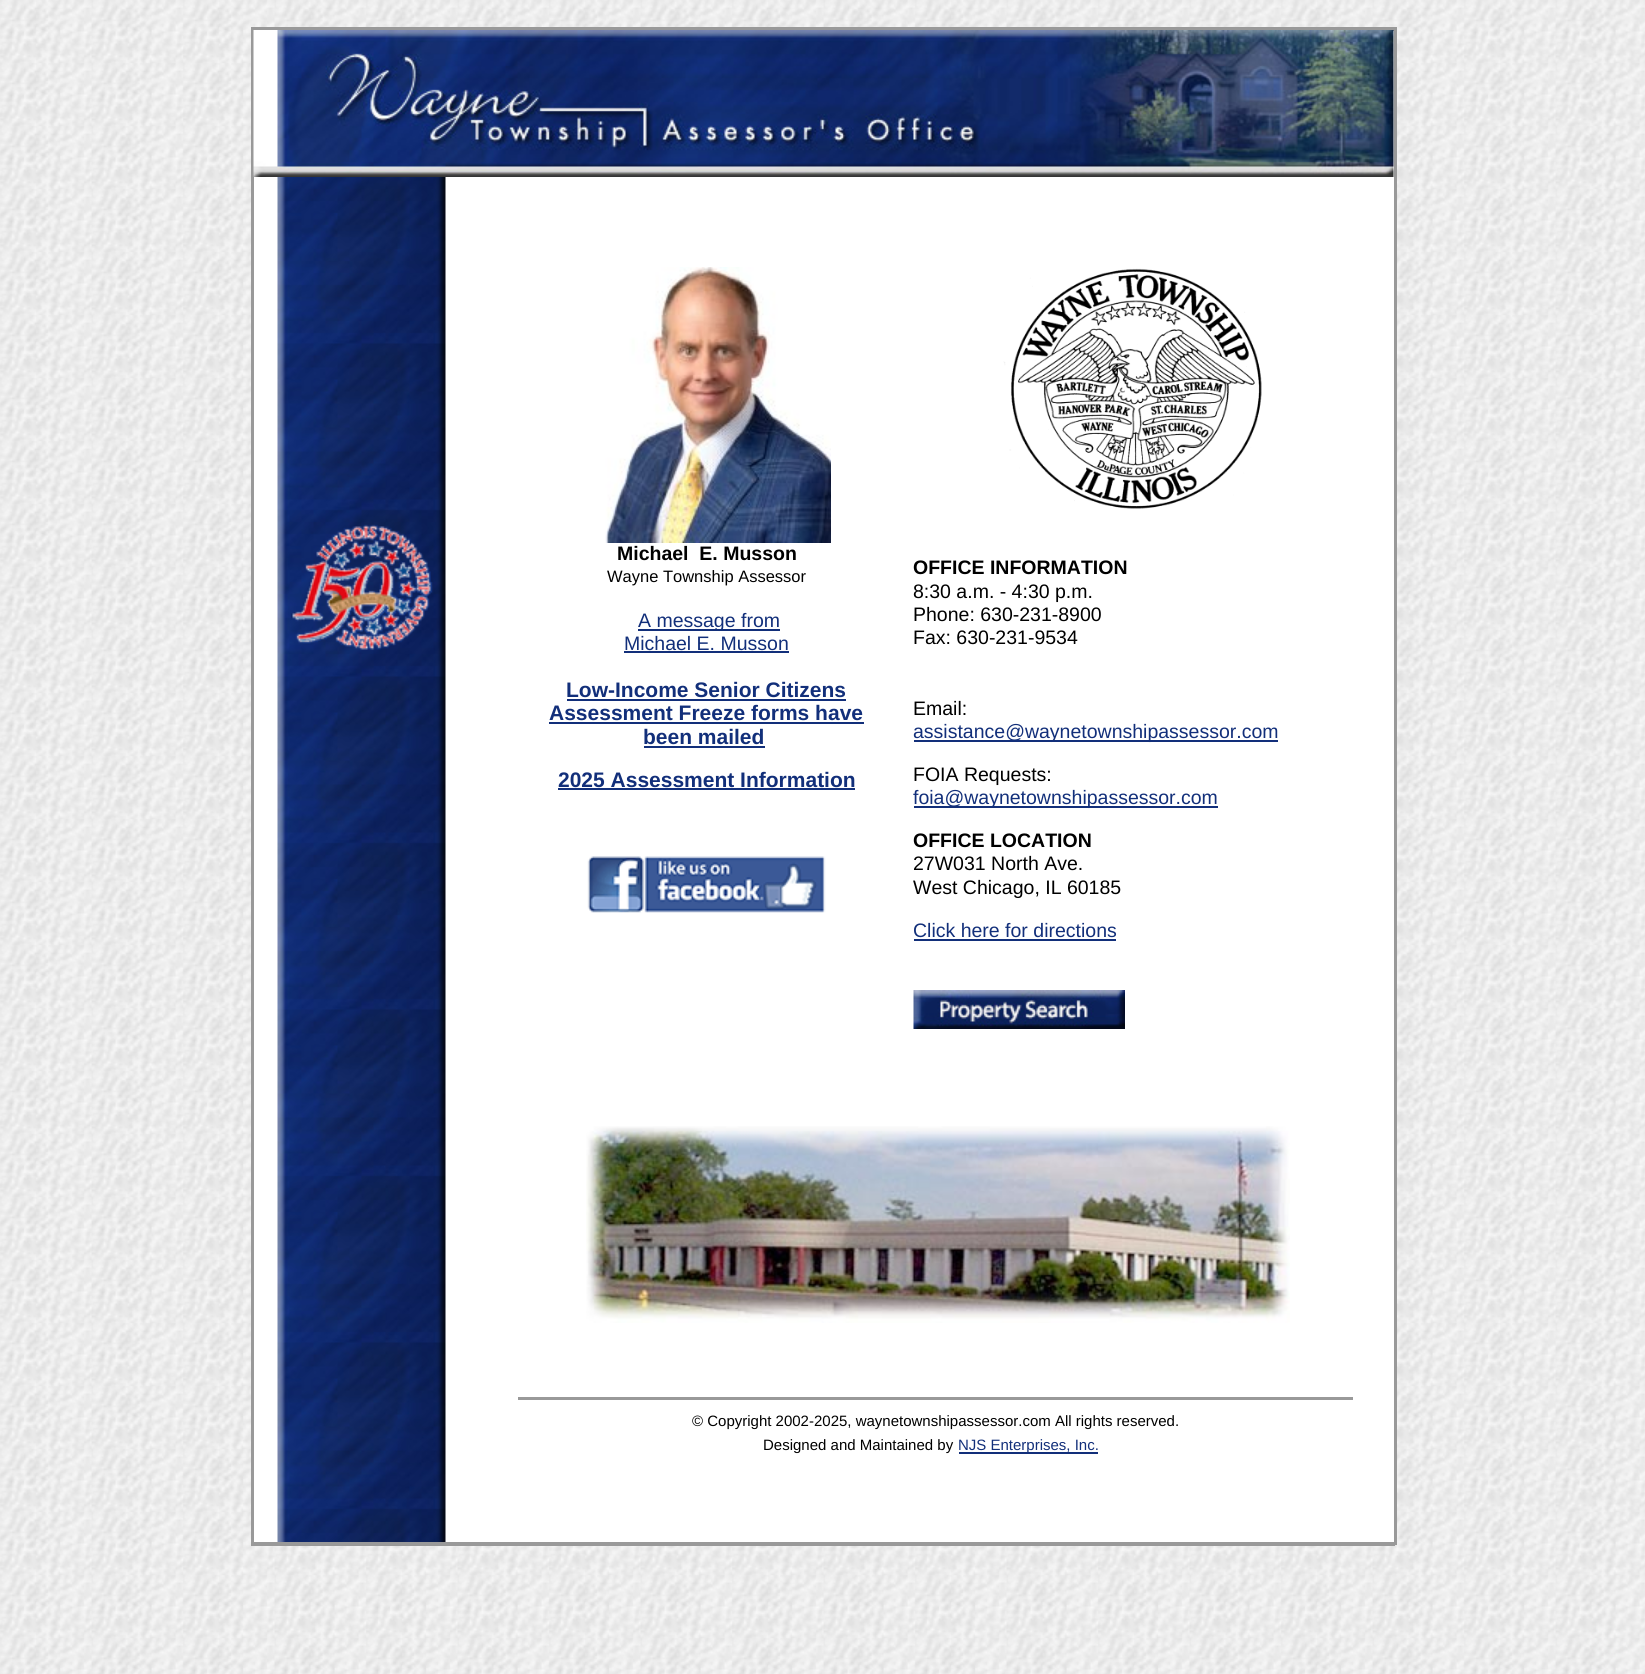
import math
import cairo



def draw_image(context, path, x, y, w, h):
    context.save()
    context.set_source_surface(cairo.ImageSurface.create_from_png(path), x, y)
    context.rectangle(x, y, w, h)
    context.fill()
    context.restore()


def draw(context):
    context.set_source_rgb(1, 1, 1)
    context.paint()
    draw_image(context, "images/1.png", 0, 0, 1645, 1674)
    context.set_source_rgb(1, 1, 1)
    context.rectangle(254, 31, 1140, 1511)
    context.fill()
    context.set_source_rgb(153 / 255, 153 / 255, 153 / 255)
    context.rectangle(251, 27, 1146, 3)
    context.fill()
    context.rectangle(1393, 30, 2, 1)
    context.fill()
    context.rectangle(1394, 27, 3, 1518)
    context.fill()
    context.rectangle(251, 1542, 1146, 3)
    context.fill()
    context.rectangle(251, 27, 3, 1518)
    context.fill()
    context.rectangle(251, 1545, 1144, 1)
    context.fill()
    draw_image(context, "images/2.png", 253, 30, 1141, 147)
    draw_image(context, "images/3.png", 277, 177, 169, 1365)
    draw_image(context, "images/4.png", 291, 524, 142, 126)
    draw_image(context, "images/5.png", 605, 267, 226, 276)
    context.set_source_rgb(18 / 255, 47 / 255, 122 / 255)
    context.rectangle(638, 629, 142, 2)
    context.fill()
    context.rectangle(624, 651, 165, 2)
    context.fill()
    context.rectangle(567, 699, 279, 2)
    context.fill()
    context.rectangle(549, 722, 315, 2)
    context.fill()
    context.rectangle(644, 746, 121, 2)
    context.fill()
    context.rectangle(558, 788, 297, 2)
    context.fill()
    draw_image(context, "images/6.png", 587, 856, 239, 57)
    draw_image(context, "images/7.png", 1003, 268, 259, 241)
    context.rectangle(914, 740, 364, 2)
    context.fill()
    context.rectangle(914, 806, 304, 2)
    context.fill()
    context.rectangle(914, 939, 202, 2)
    context.fill()
    draw_image(context, "images/8.png", 913, 990, 212, 39)
    draw_image(context, "images/9.png", 586, 1126, 704, 197)
    context.set_source_rgb(153 / 255, 153 / 255, 153 / 255)
    context.rectangle(518, 1397, 835, 3)
    context.fill()
    context.set_source_rgb(18 / 255, 47 / 255, 122 / 255)
    context.rectangle(959, 1452, 139, 2)
    context.fill()
    context.select_font_face("Liberation Sans", cairo.FontSlant.NORMAL, cairo.FontWeight.BOLD)
    context.set_font_size(19.5)
    context.set_source_rgb(0, 0, 0)
    context.move_to(617, 560)
    context.show_text("Michael  E. Musson")
    context.select_font_face("Liberation Sans")
    context.set_font_size(16.5)
    context.move_to(607, 582)
    context.show_text("Wayne Township Assessor")
    context.set_font_size(19.5)
    context.set_source_rgb(18 / 255, 47 / 255, 122 / 255)
    context.move_to(638, 627)
    context.show_text("A message from")
    context.move_to(624, 650)
    context.show_text("Michael E. Musson")
    context.select_font_face("Liberation Sans", cairo.FontSlant.NORMAL, cairo.FontWeight.BOLD)
    context.set_font_size(21)
    context.move_to(566, 697)
    context.show_text("Low-Income Senior Citizens")
    context.move_to(549, 720)
    context.show_text("Assessment Freeze forms have")
    context.move_to(643, 744)
    context.show_text("been mailed")
    context.move_to(558, 787)
    context.show_text("2025 Assessment Information")
    context.set_font_size(19.5)
    context.set_source_rgb(0, 0, 0)
    context.move_to(913, 574)
    context.show_text("OFFICE INFORMATION")
    context.select_font_face("Liberation Sans")
    context.move_to(913, 598)
    context.show_text("8:30 a.m. - 4:30 p.m.")
    context.move_to(913, 621)
    context.show_text("Phone: 630-231-8900")
    context.move_to(913, 644)
    context.show_text("Fax: 630-231-9534")
    context.move_to(913, 715)
    context.show_text("Email:")
    context.set_source_rgb(18 / 255, 47 / 255, 122 / 255)
    context.move_to(913, 738)
    context.show_text("assistance@waynetownshipassessor.com")
    context.set_source_rgb(0, 0, 0)
    context.move_to(913, 781)
    context.show_text("FOIA Requests:")
    context.set_source_rgb(18 / 255, 47 / 255, 122 / 255)
    context.move_to(913, 804)
    context.show_text("foia@waynetownshipassessor.com")
    context.select_font_face("Liberation Sans", cairo.FontSlant.NORMAL, cairo.FontWeight.BOLD)
    context.set_source_rgb(0, 0, 0)
    context.move_to(913, 847)
    context.show_text("OFFICE LOCATION")
    context.select_font_face("Liberation Sans")
    context.move_to(913, 870)
    context.show_text("27W031 North Ave.")
    context.move_to(913, 894)
    context.show_text("West Chicago, IL 60185")
    context.set_source_rgb(18 / 255, 47 / 255, 122 / 255)
    context.move_to(913, 937)
    context.show_text("Click here for directions")
    context.set_font_size(15)
    context.set_source_rgb(0, 0, 0)
    context.move_to(692, 1426)
    context.show_text("© Copyright 2002-2025, waynetownshipassessor.com All rights reserved.")
    context.move_to(763, 1450)
    context.show_text("Designed and Maintained by")
    context.set_source_rgb(18 / 255, 47 / 255, 122 / 255)
    context.move_to(958, 1450)
    context.show_text("NJS Enterprises, Inc.")


surface = cairo.ImageSurface(cairo.Format.RGB24, 1645, 1674)
context = cairo.Context(surface)
options = cairo.FontOptions()
options.set_hint_metrics(cairo.HintMetrics.OFF)
options.set_hint_style(cairo.HintStyle.NONE)
context.set_font_options(options)
context.set_miter_limit(4)
draw(context)
surface.write_to_png("out.png")
